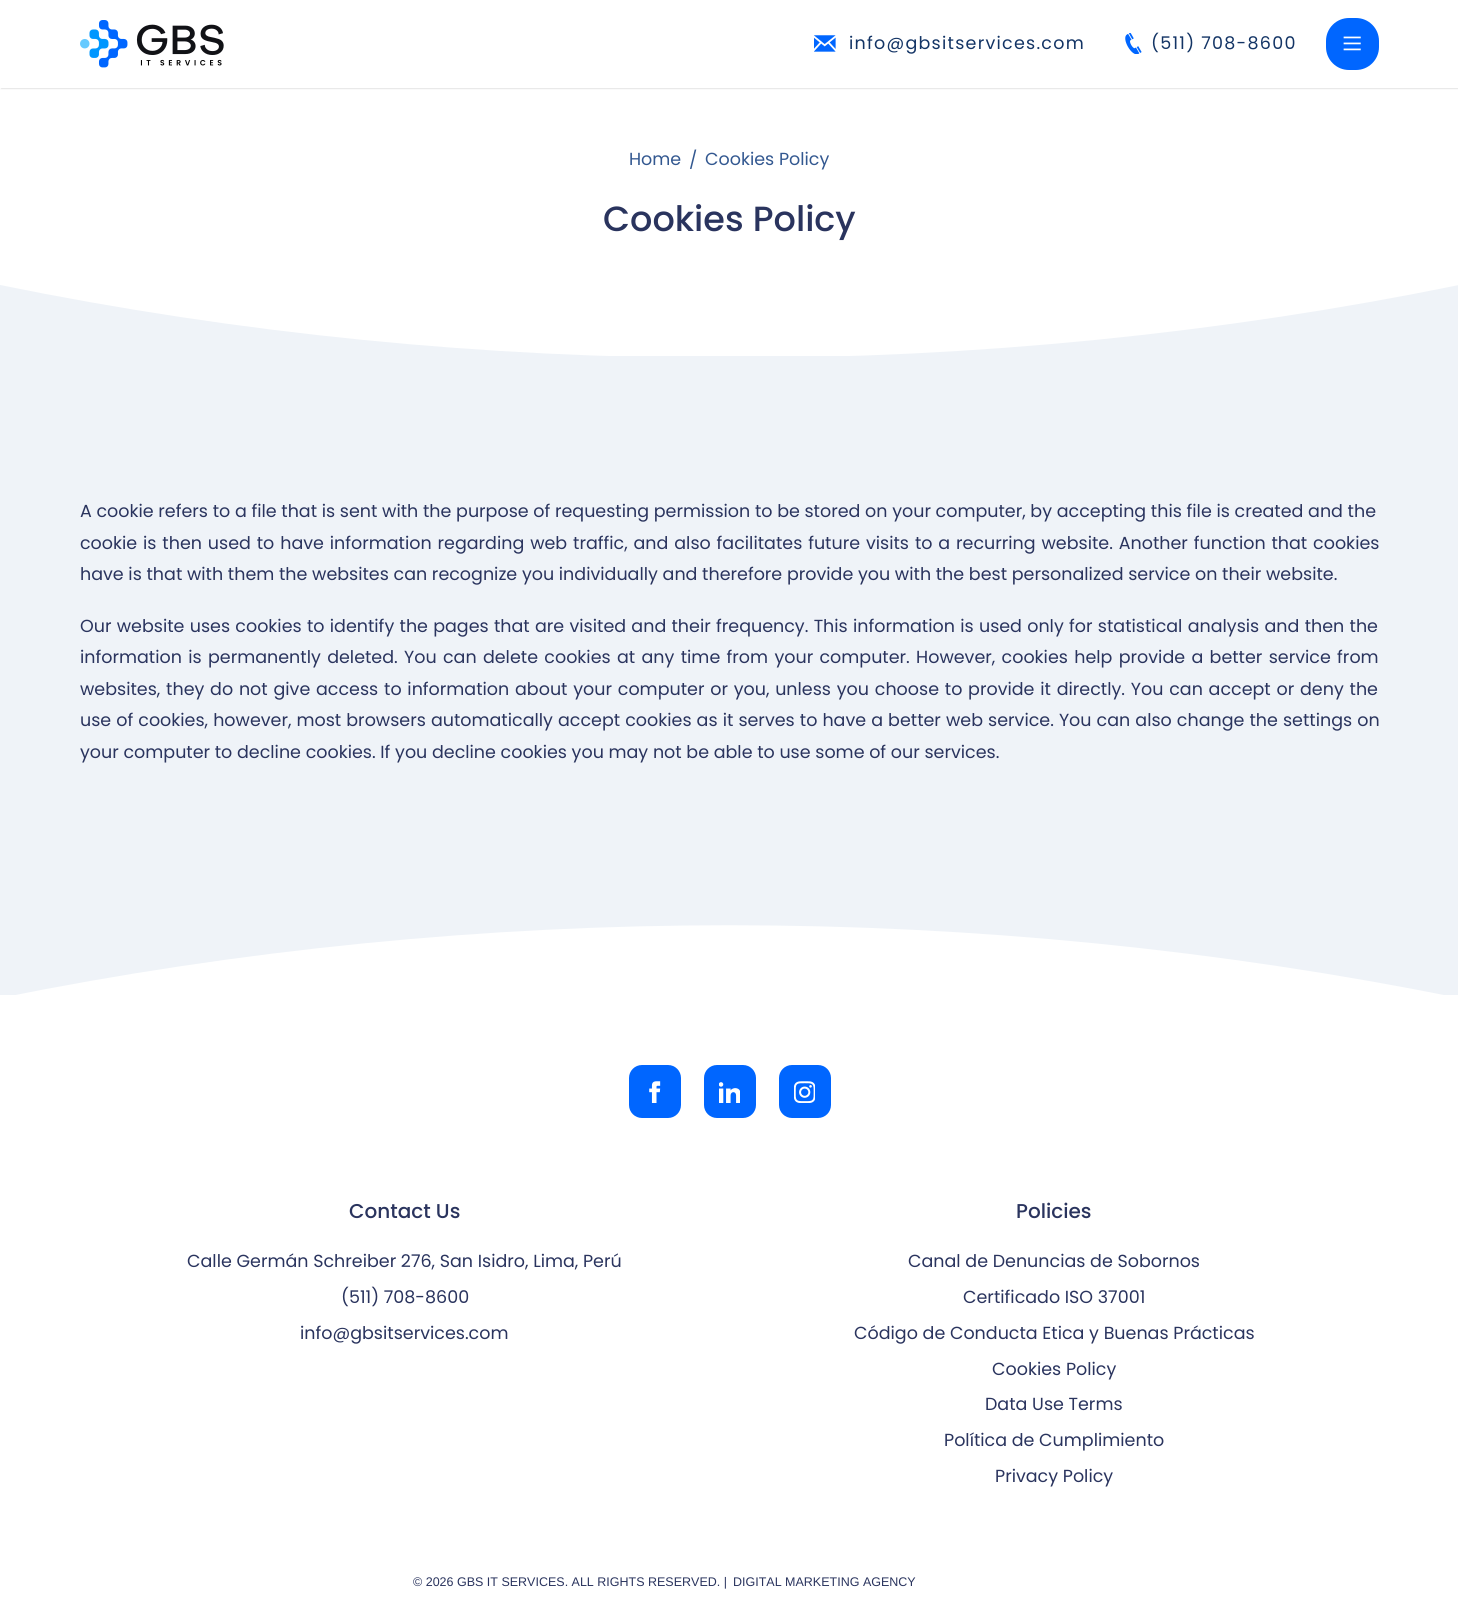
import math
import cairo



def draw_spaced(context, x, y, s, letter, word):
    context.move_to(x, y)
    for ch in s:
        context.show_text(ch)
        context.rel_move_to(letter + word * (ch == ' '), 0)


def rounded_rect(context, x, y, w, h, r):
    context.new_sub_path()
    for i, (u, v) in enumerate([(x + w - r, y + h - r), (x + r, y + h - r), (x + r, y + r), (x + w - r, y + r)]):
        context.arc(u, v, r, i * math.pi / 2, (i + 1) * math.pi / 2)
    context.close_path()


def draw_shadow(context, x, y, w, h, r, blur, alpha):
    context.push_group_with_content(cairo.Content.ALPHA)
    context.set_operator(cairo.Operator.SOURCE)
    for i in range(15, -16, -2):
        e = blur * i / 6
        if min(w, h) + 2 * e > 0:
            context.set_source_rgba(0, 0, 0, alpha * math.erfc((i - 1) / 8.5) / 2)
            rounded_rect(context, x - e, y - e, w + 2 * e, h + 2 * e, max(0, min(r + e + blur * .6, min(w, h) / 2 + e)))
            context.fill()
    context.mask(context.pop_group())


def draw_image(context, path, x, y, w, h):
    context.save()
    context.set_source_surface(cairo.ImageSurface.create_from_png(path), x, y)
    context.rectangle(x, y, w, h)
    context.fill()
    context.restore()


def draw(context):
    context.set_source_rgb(1, 1, 1)
    context.paint()
    context.set_source_rgb(0, 0, 0)
    draw_shadow(context, 1, 1, 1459, 88, 0, 0.5, 0.1)
    context.set_source_rgb(1, 1, 1)
    context.rectangle(0, 0, 1458, 88)
    context.fill()
    draw_image(context, "images/1.png", 80, 20, 144, 48)
    draw_image(context, "images/2.png", 814, 35, 22, 17)
    draw_image(context, "images/3.png", 1125, 33, 17, 21)
    context.set_source_rgb(0, 102 / 255, 1)
    rounded_rect(context, 1326, 18, 53, 52, 23)
    context.fill()
    draw_image(context, "images/4.png", 1343, 36, 18, 15)
    context.set_source_rgb(239 / 255, 243 / 255, 248 / 255)
    context.new_path()
    context.move_to(0, 358)
    context.line_to(729, 358)
    context.curve_to(484, 358, 240, 334, 0, 285)
    context.close_path()
    context.fill()
    context.new_path()
    context.move_to(729, 358)
    context.line_to(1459, 358)
    context.line_to(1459, 285)
    context.curve_to(1219, 334, 974, 358, 729, 358)
    context.close_path()
    context.fill()
    context.rectangle(0, 356, 1458, 639)
    context.fill()
    context.set_source_rgb(1, 1, 1)
    context.new_path()
    context.move_to(0, 998)
    context.line_to(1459, 998)
    context.curve_to(979, 901, 480, 901, 0, 998)
    context.close_path()
    context.fill()
    context.set_source_rgb(0, 102 / 255, 1)
    rounded_rect(context, 629, 1065, 52, 53, 13)
    context.fill()
    draw_image(context, "images/5.png", 649, 1081, 12, 22)
    rounded_rect(context, 704, 1065, 52, 53, 13)
    context.fill()
    draw_image(context, "images/6.png", 719, 1082, 21, 21)
    rounded_rect(context, 779, 1065, 52, 53, 13)
    context.fill()
    draw_image(context, "images/7.png", 794, 1081, 21, 22)
    context.select_font_face("Poppins")
    context.set_font_size(17.5)
    context.set_source_rgb(19 / 255, 52 / 255, 101 / 255)
    draw_spaced(context, 849, 49, "info@gbsitservices.com", 1.25, 0)
    draw_spaced(context, 1151, 49, "(511) 708-8600", 1.25, 0)
    context.set_source_rgb(51 / 255, 88 / 255, 144 / 255)
    context.move_to(629, 165)
    context.show_text("Home")
    context.move_to(689, 166)
    context.show_text("/")
    context.move_to(705, 165)
    context.show_text("Cookies Policy")
    context.select_font_face("Poppins Medium")
    context.set_font_size(35)
    context.set_source_rgb(42 / 255, 52 / 255, 94 / 255)
    context.move_to(603, 231)
    context.show_text("Cookies Policy")
    context.select_font_face("Poppins")
    context.set_font_size(17.5)
    context.move_to(80, 517)
    context.show_text("A cookie refers to a file that is sent with the purpose of requesting permission to be stored on your computer, by accepting this file is created and the")
    draw_spaced(context, 80, 549, "cookie is then used to have information regarding web traffic, and also facilitates future visits to a recurring website. Another function that cookies", 0, 1.2)
    context.move_to(80, 580)
    context.show_text("have is that with them the websites can recognize you individually and therefore provide you with the best personalized service on their website.")
    draw_spaced(context, 80, 632, "Our website uses cookies to identify the pages that are visited and their frequency. This information is used only for statistical analysis and then the", 0, 0.6)
    draw_spaced(context, 80, 663, "information is permanently deleted. You can delete cookies at any time from your computer. However, cookies help provide a better service from", 0, 1.65)
    draw_spaced(context, 80, 695, "websites, they do not give access to information about your computer or you, unless you choose to provide it directly. You can accept or deny the", 0, 1.1)
    draw_spaced(context, 80, 726, "use of cookies, however, most browsers automatically accept cookies as it serves to have a better web service. You can also change the settings on", 0, 0.4)
    context.move_to(80, 758)
    context.show_text("your computer to decline cookies. If you decline cookies you may not be able to use some of our services.")
    context.select_font_face("Poppins Medium")
    context.set_font_size(20)
    context.move_to(349, 1218)
    context.show_text("Contact Us")
    context.select_font_face("Poppins")
    context.set_font_size(17.5)
    context.move_to(187, 1267)
    context.show_text("Calle Germán Schreiber 276, San Isidro, Lima, Perú")
    context.move_to(341, 1303)
    context.show_text("(511) 708-8600")
    context.move_to(300, 1339)
    context.show_text("info@gbsitservices.com")
    context.select_font_face("Poppins Medium")
    context.set_font_size(20)
    context.move_to(1016, 1218)
    context.show_text("Policies")
    context.select_font_face("Poppins")
    context.set_font_size(17.5)
    context.move_to(908, 1267)
    context.show_text("Canal de Denuncias de Sobornos")
    context.move_to(963, 1303)
    context.show_text("Certificado ISO 37001")
    context.move_to(854, 1339)
    context.show_text("Código de Conducta Etica y Buenas Prácticas")
    context.move_to(992, 1375)
    context.show_text("Cookies Policy")
    context.move_to(985, 1410)
    context.show_text("Data Use Terms")
    context.move_to(944, 1446)
    context.show_text("Política de Cumplimiento")
    context.move_to(995, 1482)
    context.show_text("Privacy Policy")
    context.select_font_face("Liberation Sans")
    context.set_font_size(12.5)
    context.move_to(413, 1586)
    context.show_text("© 2026 GBS IT SERVICES. ALL RIGHTS RESERVED. |")
    context.move_to(733, 1586)
    context.show_text("DIGITAL MARKETING AGENCY")


surface = cairo.ImageSurface(cairo.Format.RGB24, 1458, 1608)
context = cairo.Context(surface)
options = cairo.FontOptions()
options.set_hint_metrics(cairo.HintMetrics.OFF)
options.set_hint_style(cairo.HintStyle.NONE)
context.set_font_options(options)
context.set_miter_limit(4)
draw(context)
surface.write_to_png("out.png")
